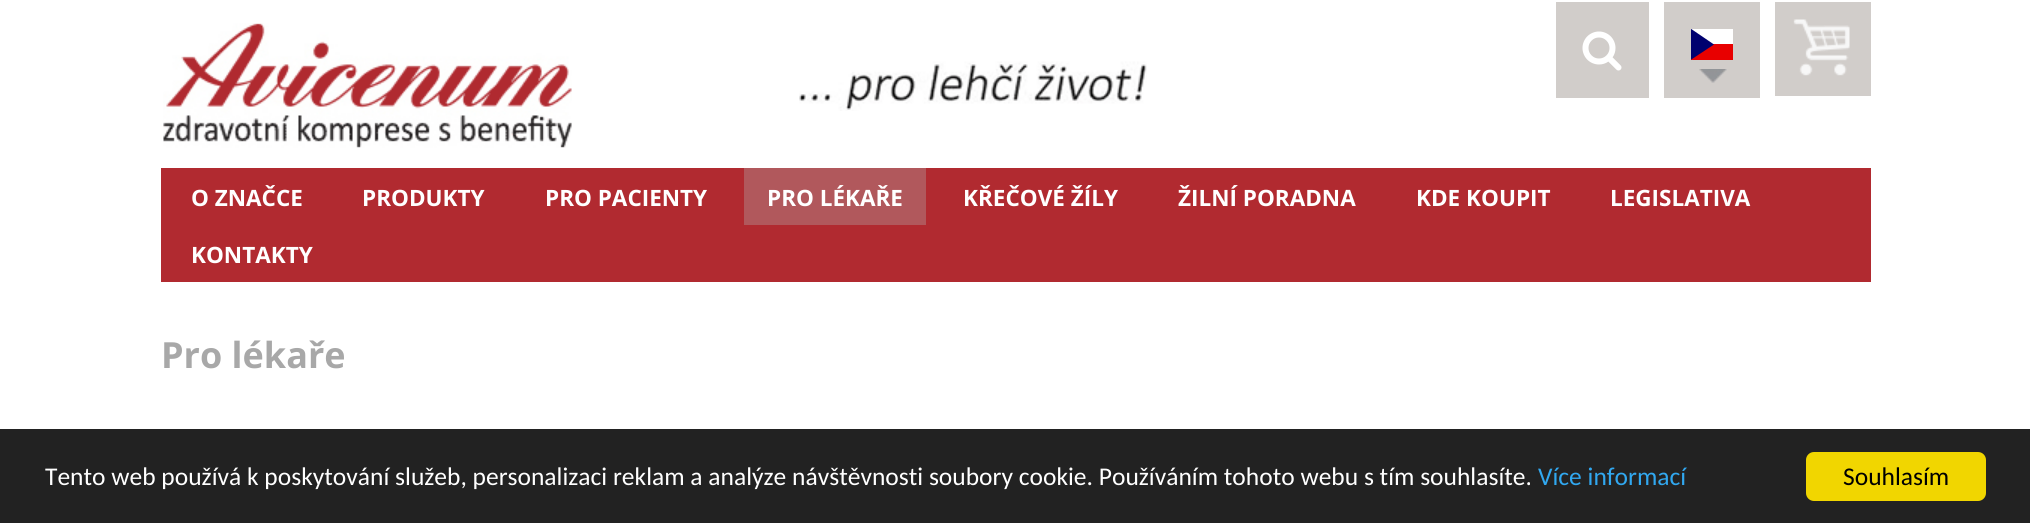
import math
import cairo



def rounded_rect(context, x, y, w, h, r):
    context.new_sub_path()
    for i, (u, v) in enumerate([(x + w - r, y + h - r), (x + r, y + h - r), (x + r, y + r), (x + w - r, y + r)]):
        context.arc(u, v, r, i * math.pi / 2, (i + 1) * math.pi / 2)
    context.close_path()


def draw_image(context, path, x, y, w, h):
    context.save()
    context.set_source_surface(cairo.ImageSurface.create_from_png(path), x, y)
    context.rectangle(x, y, w, h)
    context.fill()
    context.restore()


def draw(context):
    context.set_source_rgb(1, 1, 1)
    context.paint()
    draw_image(context, "images/1.png", 163, 23, 409, 125)
    draw_image(context, "images/2.png", 799, 61, 348, 50)
    context.set_source_rgb(209 / 255, 205 / 255, 202 / 255)
    context.rectangle(1556, 2, 93, 96)
    context.fill()
    draw_image(context, "images/3.png", 1582, 31, 40, 40)
    context.rectangle(1664, 2, 96, 96)
    context.fill()
    context.set_source_rgb(232 / 255, 0, 0)
    context.rectangle(1691, 44, 42, 16)
    context.fill()
    context.set_source_rgb(1, 1, 1)
    context.rectangle(1691, 29, 42, 15)
    context.fill()
    context.save()
    context.rectangle(1691, 29, 42, 31)
    context.clip()
    context.set_source_rgb(0, 0, 111 / 255)
    context.set_fill_rule(cairo.FillRule.EVEN_ODD)
    context.new_path()
    context.move_to(1690.5, 28.5)
    context.line_to(1714, 44.5)
    context.line_to(1690.5, 60)
    context.close_path()
    context.fill()
    context.restore()
    draw_image(context, "images/4.png", 1699, 69, 28, 14)
    context.set_source_rgb(209 / 255, 205 / 255, 202 / 255)
    context.rectangle(1775, 2, 96, 94)
    context.fill()
    draw_image(context, "images/5.png", 1793, 19, 57, 57)
    context.set_source_rgb(177 / 255, 42 / 255, 48 / 255)
    context.rectangle(161, 168, 1710, 114)
    context.fill()
    context.set_source_rgb(177 / 255, 88 / 255, 92 / 255)
    context.rectangle(744, 168, 182, 57)
    context.fill()
    context.set_source_rgb(34 / 255, 34 / 255, 34 / 255)
    context.rectangle(0, 429, 2030, 94)
    context.fill()
    context.set_source_rgb(241 / 255, 214 / 255, 0)
    rounded_rect(context, 1806, 452, 180, 49, 8)
    context.fill()
    context.select_font_face("Open Sans", cairo.FontSlant.NORMAL, cairo.FontWeight.BOLD)
    context.set_font_size(22.5)
    context.set_source_rgb(1, 1, 1)
    context.move_to(191, 206)
    context.show_text("O ZNAČCE")
    context.move_to(362, 206)
    context.show_text("PRODUKTY")
    context.move_to(545, 206)
    context.show_text("PRO PACIENTY")
    context.move_to(767, 206)
    context.show_text("PRO LÉKAŘE")
    context.move_to(963, 206)
    context.show_text("KŘEČOVÉ ŽÍLY")
    context.move_to(1178, 206)
    context.show_text("ŽILNÍ PORADNA")
    context.move_to(1416, 206)
    context.show_text("KDE KOUPIT")
    context.move_to(1610, 206)
    context.show_text("LEGISLATIVA")
    context.move_to(191, 263)
    context.show_text("KONTAKTY")
    context.set_font_size(36)
    context.set_source_rgb(168 / 255, 168 / 255, 168 / 255)
    context.move_to(161, 368)
    context.show_text("Pro lékaře")
    context.select_font_face("Carlito")
    context.set_font_size(25.5)
    context.set_source_rgb(1, 1, 1)
    context.move_to(45, 485)
    context.show_text("Tento web používá k poskytování služeb, personalizaci reklam a analýze návštěvnosti soubory cookie. Používáním tohoto webu s tím souhlasíte.")
    context.set_source_rgb(49 / 255, 168 / 255, 240 / 255)
    context.move_to(1538, 485)
    context.show_text("Více informací")
    context.set_source_rgb(0, 0, 0)
    context.move_to(1843, 485)
    context.show_text("Souhlasím")


surface = cairo.ImageSurface(cairo.Format.RGB24, 2030, 523)
context = cairo.Context(surface)
options = cairo.FontOptions()
options.set_hint_metrics(cairo.HintMetrics.OFF)
options.set_hint_style(cairo.HintStyle.NONE)
context.set_font_options(options)
context.set_miter_limit(4)
draw(context)
surface.write_to_png("out.png")
